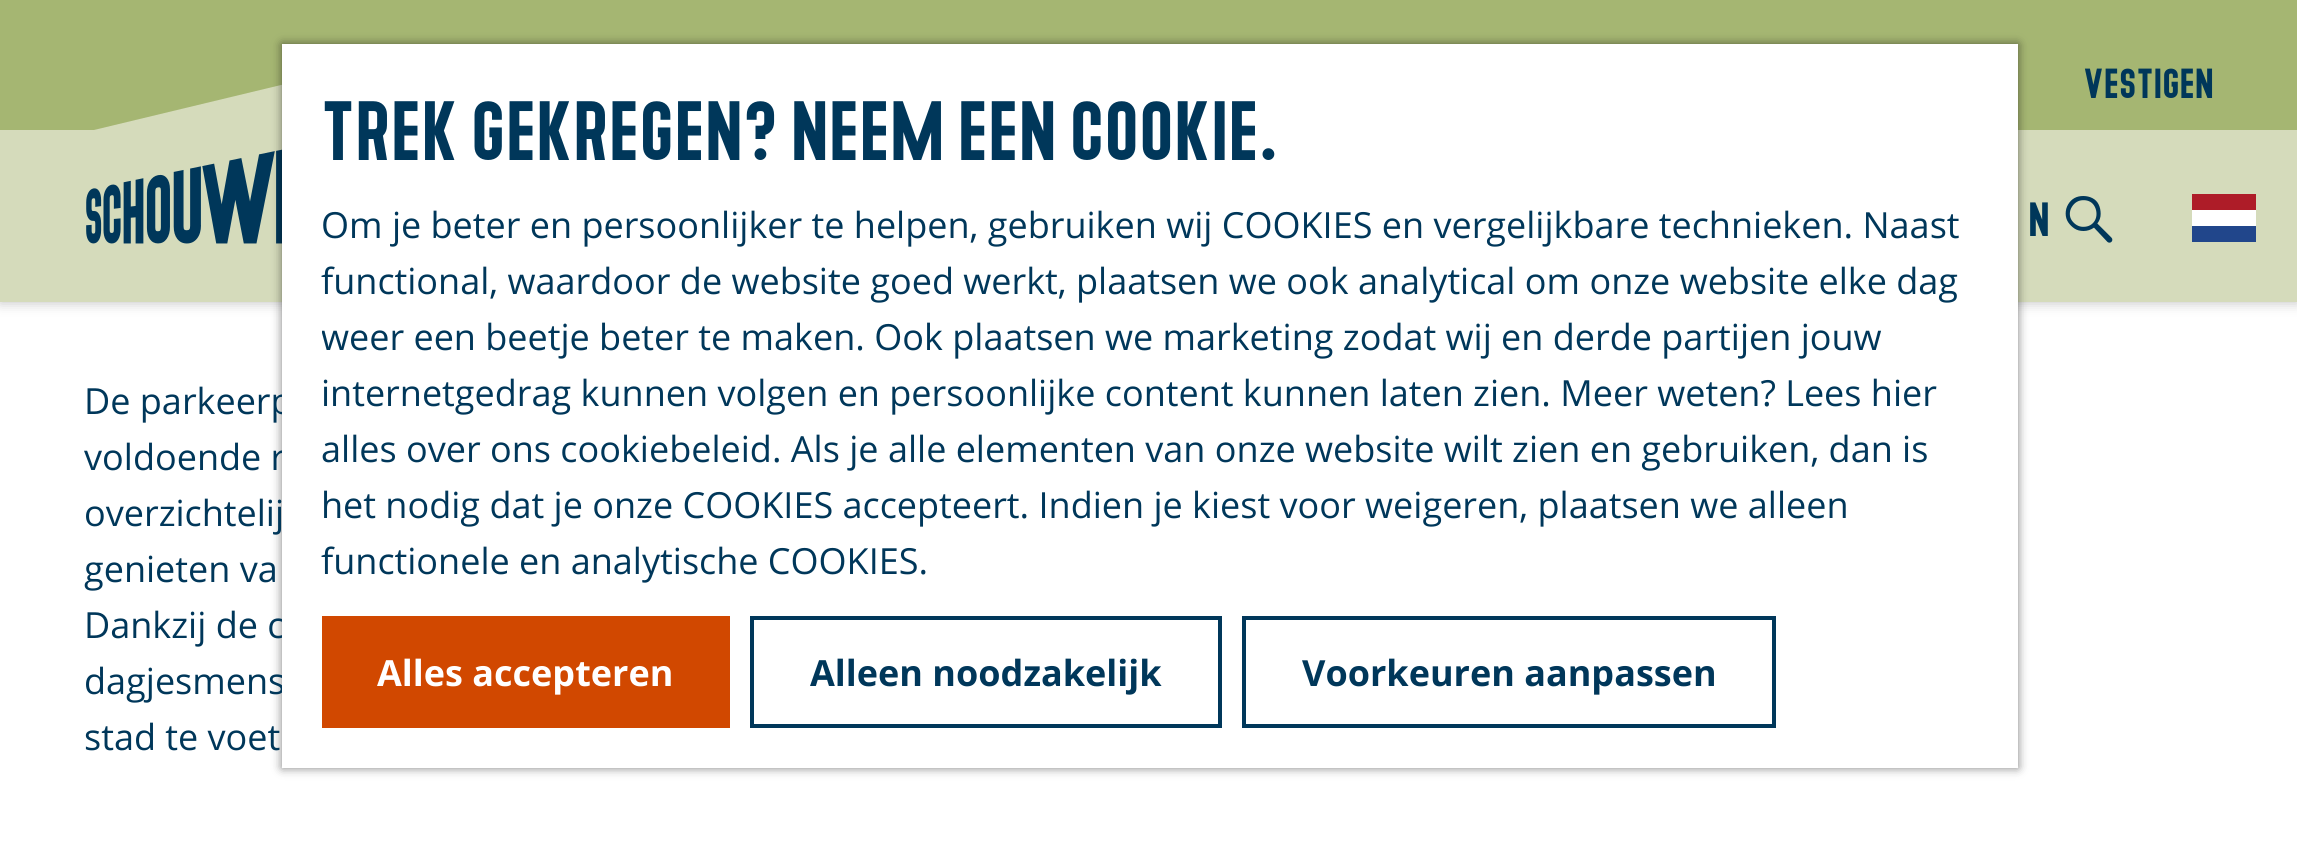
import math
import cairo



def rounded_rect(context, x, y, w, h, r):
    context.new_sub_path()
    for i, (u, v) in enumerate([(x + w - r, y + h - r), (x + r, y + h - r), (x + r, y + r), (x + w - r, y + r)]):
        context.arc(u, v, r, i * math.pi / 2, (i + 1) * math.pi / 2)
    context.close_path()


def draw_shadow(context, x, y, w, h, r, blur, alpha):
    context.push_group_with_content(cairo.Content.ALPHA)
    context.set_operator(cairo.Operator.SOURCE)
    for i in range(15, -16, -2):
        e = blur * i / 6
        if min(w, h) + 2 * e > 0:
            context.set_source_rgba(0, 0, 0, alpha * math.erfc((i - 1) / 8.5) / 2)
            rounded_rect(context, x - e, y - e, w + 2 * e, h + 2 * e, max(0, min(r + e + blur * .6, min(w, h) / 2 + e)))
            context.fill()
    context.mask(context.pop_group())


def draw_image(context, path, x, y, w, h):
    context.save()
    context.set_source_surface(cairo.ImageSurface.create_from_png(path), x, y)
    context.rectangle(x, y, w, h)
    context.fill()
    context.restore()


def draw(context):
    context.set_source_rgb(1, 1, 1)
    context.paint()
    context.set_source_rgb(0, 0, 0)
    draw_shadow(context, 0, 132, 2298, 172, 0, 6, 0.2)
    context.set_source_rgb(213 / 255, 219 / 255, 187 / 255)
    context.rectangle(0, 130, 2297, 172)
    context.fill()
    context.set_source_rgb(165 / 255, 182 / 255, 114 / 255)
    context.rectangle(0, 0, 2297, 130)
    context.fill()
    draw_image(context, "images/1.png", 86, 84, 196, 160)
    context.set_source_rgb(0, 0, 0)
    draw_shadow(context, 282, 44, 1736, 724, 0, 5, 0.5)
    draw_image(context, "images/2.png", 2065, 196, 48, 47)
    context.set_source_rgb(1, 1, 1)
    context.rectangle(2192, 210, 64, 16)
    context.fill()
    context.set_source_rgb(33 / 255, 70 / 255, 139 / 255)
    context.rectangle(2192, 226, 64, 16)
    context.fill()
    context.set_source_rgb(174 / 255, 28 / 255, 40 / 255)
    context.rectangle(2192, 194, 64, 16)
    context.fill()
    context.select_font_face("Open Sans")
    context.set_font_size(36)
    context.set_source_rgb(0, 55 / 255, 90 / 255)
    context.move_to(84, 414)
    context.show_text("De parkeerp")
    context.move_to(84, 470)
    context.show_text("voldoende r")
    context.move_to(84, 526)
    context.show_text("overzichtelij")
    context.move_to(84, 582)
    context.show_text("genieten va")
    context.move_to(84, 638)
    context.show_text("Dankzij de c")
    context.move_to(84, 694)
    context.show_text("dagjesmens")
    context.move_to(84, 750)
    context.show_text("stad te voet")
    context.set_source_rgb(1, 1, 1)
    context.rectangle(282, 44, 1736, 724)
    context.fill()
    context.select_font_face("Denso")
    context.set_font_size(84)
    context.set_source_rgb(0, 55 / 255, 90 / 255)
    context.move_to(321, 160)
    context.show_text("Trek gekregen? Neem een cookie.")
    context.select_font_face("Open Sans")
    context.set_font_size(36)
    context.move_to(321, 238)
    context.show_text("Om je beter en persoonlijker te helpen, gebruiken wij COOKIES en vergelijkbare technieken. Naast")
    context.move_to(321, 294)
    context.show_text("functional, waardoor de website goed werkt, plaatsen we ook analytical om onze website elke dag")
    context.save()
    context.rectangle(322, 84, 1656, 532)
    context.clip()
    context.move_to(321, 350)
    context.show_text("weer een beetje beter te maken. Ook plaatsen we marketing zodat wij en derde partijen jouw")
    context.restore()
    context.move_to(321, 406)
    context.show_text("internetgedrag kunnen volgen en persoonlijke content kunnen laten zien. Meer weten? Lees hier")
    context.move_to(321, 462)
    context.show_text("alles over ons cookiebeleid. Als je alle elementen van onze website wilt zien en gebruiken, dan is")
    context.move_to(321, 518)
    context.show_text("het nodig dat je onze COOKIES accepteert. Indien je kiest voor weigeren, plaatsen we alleen")
    context.move_to(321, 574)
    context.show_text("functionele en analytische COOKIES.")
    context.set_source_rgb(209 / 255, 72 / 255, 0)
    context.rectangle(322, 616, 408, 112)
    context.fill()
    context.select_font_face("Open Sans", cairo.FontSlant.NORMAL, cairo.FontWeight.BOLD)
    context.set_source_rgb(1, 1, 1)
    context.move_to(377, 686)
    context.show_text("Alles accepteren")
    context.rectangle(752, 618, 468, 108)
    context.set_source_rgb(0, 55 / 255, 90 / 255)
    context.set_line_width(4)
    context.stroke()
    context.move_to(810, 686)
    context.show_text("Alleen noodzakelijk")
    context.rectangle(1244, 618, 530, 108)
    context.stroke()
    context.move_to(1302, 686)
    context.show_text("Voorkeuren aanpassen")
    context.select_font_face("Denso")
    context.set_font_size(48)
    context.move_to(2028, 236)
    context.show_text("n")
    context.set_font_size(42)
    context.move_to(2083, 98)
    context.show_text("Vestigen")


surface = cairo.ImageSurface(cairo.Format.RGB24, 2297, 852)
context = cairo.Context(surface)
options = cairo.FontOptions()
options.set_hint_metrics(cairo.HintMetrics.OFF)
options.set_hint_style(cairo.HintStyle.NONE)
context.set_font_options(options)
context.set_miter_limit(4)
draw(context)
surface.write_to_png("out.png")
